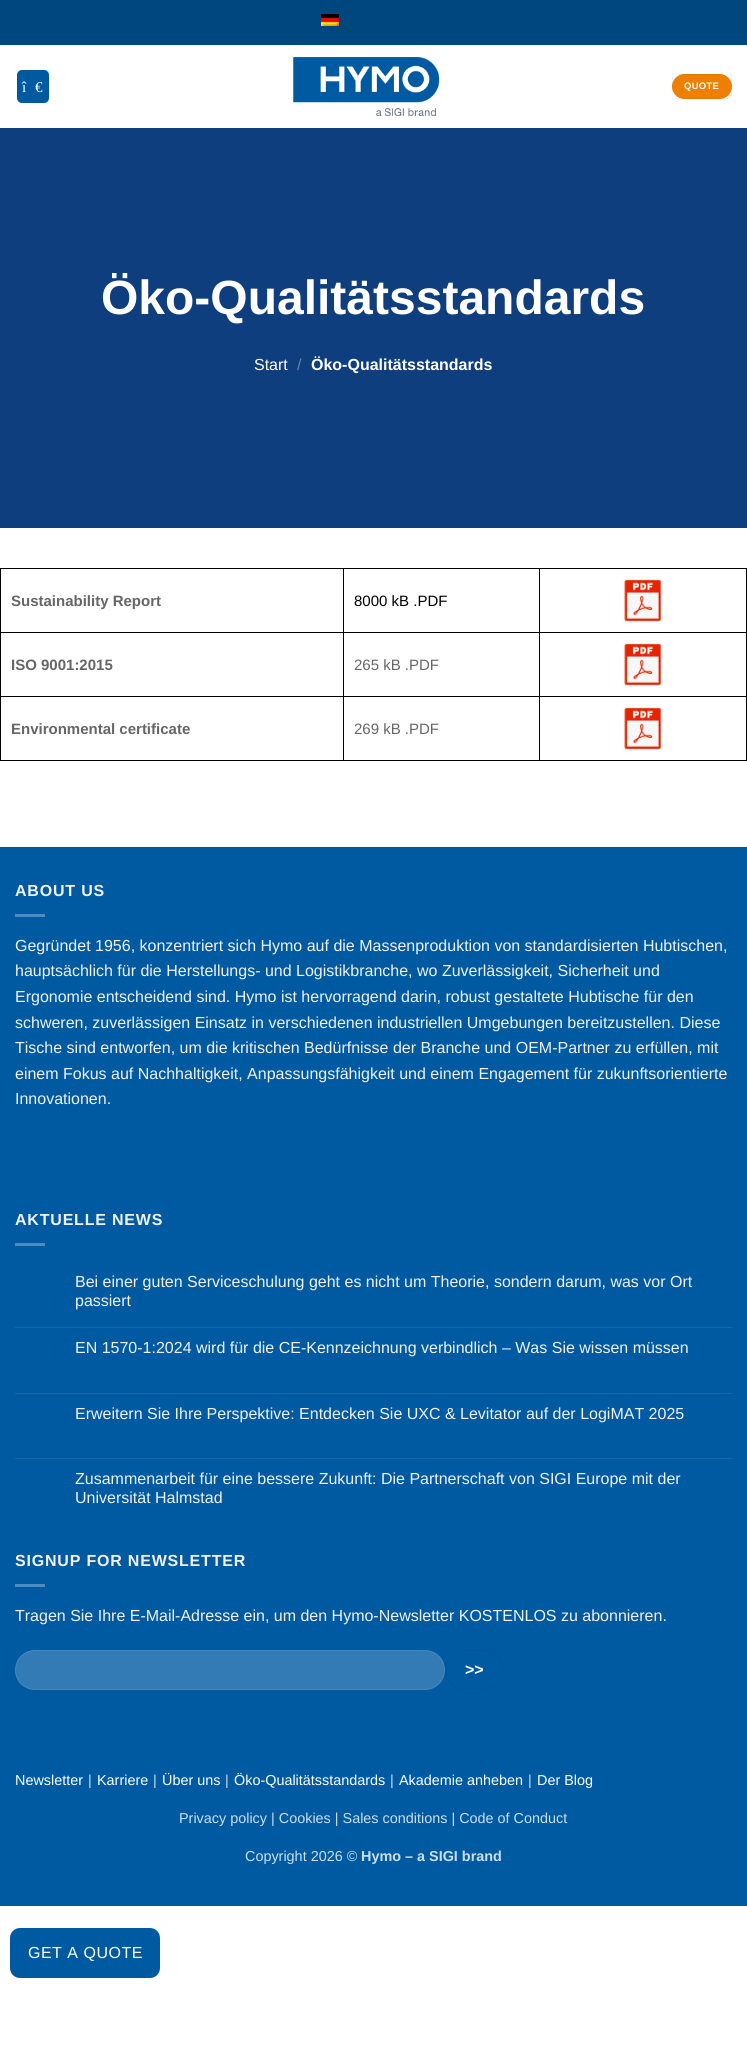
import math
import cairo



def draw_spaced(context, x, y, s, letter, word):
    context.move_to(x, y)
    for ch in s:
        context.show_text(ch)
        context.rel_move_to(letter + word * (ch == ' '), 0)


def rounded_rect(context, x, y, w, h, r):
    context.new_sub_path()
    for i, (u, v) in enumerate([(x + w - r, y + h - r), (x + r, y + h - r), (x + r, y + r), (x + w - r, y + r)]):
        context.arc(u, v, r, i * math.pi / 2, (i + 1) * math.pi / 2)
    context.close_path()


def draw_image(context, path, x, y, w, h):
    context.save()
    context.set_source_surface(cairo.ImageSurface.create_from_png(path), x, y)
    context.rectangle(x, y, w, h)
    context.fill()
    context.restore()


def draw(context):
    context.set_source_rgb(1, 1, 1)
    context.paint()
    context.set_source_rgb(0, 71 / 255, 127 / 255)
    context.rectangle(0, 0, 747, 45)
    context.fill()
    draw_image(context, "images/1.png", 321, 14, 18, 12)
    context.set_source_rgb(0, 90 / 255, 162 / 255)
    rounded_rect(context, 17, 70, 32, 33, 5)
    context.fill()
    context.rectangle(17.5, 70.5, 31, 32)
    context.set_source_rgba(0, 0, 0, 0.05)
    context.set_line_width(1)
    context.stroke()
    draw_image(context, "images/2.png", 292, 57, 148, 59)
    context.set_source_rgb(239 / 255, 127 / 255, 1 / 255)
    rounded_rect(context, 672, 74, 60, 25, 12.5)
    context.fill()
    context.rectangle(672.5, 74.5, 59, 24)
    context.set_source_rgba(0, 0, 0, 0.05)
    context.stroke()
    context.set_source_rgb(15 / 255, 62 / 255, 126 / 255)
    context.rectangle(0, 128, 747, 400)
    context.fill()
    context.set_source_rgb(0, 0, 0)
    context.rectangle(539, 568, 208, 1)
    context.fill()
    context.rectangle(539, 632, 208, 1)
    context.fill()
    context.rectangle(539, 696, 208, 1)
    context.fill()
    context.rectangle(746, 696, 1, 65)
    context.fill()
    context.rectangle(539, 760, 208, 1)
    context.fill()
    context.rectangle(539, 696, 1, 65)
    context.fill()
    context.rectangle(343, 696, 197, 1)
    context.fill()
    context.rectangle(539, 632, 1, 65)
    context.fill()
    context.rectangle(343, 632, 197, 1)
    context.fill()
    context.rectangle(539, 568, 1, 65)
    context.fill()
    context.rectangle(343, 568, 197, 1)
    context.fill()
    context.rectangle(343, 760, 197, 1)
    context.fill()
    context.rectangle(343, 696, 1, 65)
    context.fill()
    context.rectangle(0, 696, 344, 1)
    context.fill()
    context.rectangle(343, 632, 1, 65)
    context.fill()
    context.rectangle(0, 632, 344, 1)
    context.fill()
    context.rectangle(343, 568, 1, 65)
    context.fill()
    context.rectangle(0, 568, 344, 1)
    context.fill()
    context.rectangle(0, 760, 344, 1)
    context.fill()
    context.rectangle(0, 696, 1, 65)
    context.fill()
    context.rectangle(0, 632, 1, 65)
    context.fill()
    context.rectangle(0, 568, 1, 65)
    context.fill()
    context.rectangle(746, 632, 1, 65)
    context.fill()
    context.rectangle(746, 568, 1, 65)
    context.fill()
    draw_image(context, "images/3.png", 624, 579, 38, 43)
    draw_image(context, "images/4.png", 624, 643, 38, 43)
    draw_image(context, "images/4.png", 624, 707, 38, 43)
    context.set_source_rgb(0, 90 / 255, 162 / 255)
    context.rectangle(0, 848, 747, 1058)
    context.fill()
    context.set_source_rgb(0, 86 / 255, 154 / 255)
    context.rectangle(0, 847, 747, 1)
    context.fill()
    context.set_source_rgb(77 / 255, 140 / 255, 190 / 255)
    context.rectangle(15, 914, 30, 3)
    context.fill()
    context.rectangle(15, 1243, 30, 3)
    context.fill()
    context.set_source_rgb(20 / 255, 103 / 255, 169 / 255)
    context.rectangle(15, 1327, 717, 1)
    context.fill()
    context.rectangle(15, 1393, 717, 1)
    context.fill()
    context.rectangle(15, 1458, 717, 1)
    context.fill()
    context.set_source_rgb(77 / 255, 140 / 255, 190 / 255)
    context.rectangle(15, 1584, 30, 3)
    context.fill()
    context.set_source_rgb(51 / 255, 123 / 255, 181 / 255)
    rounded_rect(context, 15, 1650, 430, 40, 20)
    context.fill()
    rounded_rect(context, 15.5, 1650.5, 429, 39, 19.5)
    context.set_source_rgba(1, 1, 1, 0.09)
    context.stroke()
    rounded_rect(context, 445.5, 1650.5, 57, 39, 19.5)
    context.set_source_rgb(0, 86 / 255, 154 / 255)
    context.stroke()
    context.set_source_rgb(0, 90 / 255, 162 / 255)
    rounded_rect(context, 10, 1928, 150, 50, 10)
    context.fill()
    context.select_font_face("Liberation Serif")
    context.set_font_size(15)
    context.set_source_rgb(1, 1, 1)
    draw_spaced(context, 22, 92, "î", 0.5, 0)
    draw_spaced(context, 35, 92, "€", 0.5, 0)
    context.select_font_face("Liberation Sans", cairo.FontSlant.NORMAL, cairo.FontWeight.BOLD)
    context.set_font_size(9.5)
    draw_spaced(context, 684, 89, "QUOTE", 0.25, 0)
    context.set_font_size(48)
    context.move_to(101, 314)
    context.show_text("Öko-Qualitätsstandards")
    context.select_font_face("Liberation Sans")
    context.set_font_size(16)
    context.move_to(254, 370)
    context.show_text("Start")
    context.set_source_rgb(99 / 255, 130 / 255, 171 / 255)
    context.move_to(297, 370)
    context.show_text("/")
    context.select_font_face("Liberation Sans", cairo.FontSlant.NORMAL, cairo.FontWeight.BOLD)
    context.set_source_rgb(1, 1, 1)
    context.move_to(311, 370)
    context.show_text("Öko-Qualitätsstandards")
    context.set_font_size(15)
    context.set_source_rgb(102 / 255, 102 / 255, 102 / 255)
    context.move_to(11, 606)
    context.show_text("Sustainability Report")
    context.select_font_face("Liberation Sans")
    context.set_source_rgb(0, 0, 0)
    context.move_to(354, 606)
    context.show_text("8000 kB .PDF")
    context.select_font_face("Liberation Sans", cairo.FontSlant.NORMAL, cairo.FontWeight.BOLD)
    context.set_source_rgb(102 / 255, 102 / 255, 102 / 255)
    context.move_to(11, 670)
    context.show_text("ISO 9001:2015")
    context.select_font_face("Liberation Sans")
    context.move_to(354, 670)
    context.show_text("265 kB .PDF")
    context.select_font_face("Liberation Sans", cairo.FontSlant.NORMAL, cairo.FontWeight.BOLD)
    context.move_to(11, 734)
    context.show_text("Environmental certificate")
    context.select_font_face("Liberation Sans")
    context.move_to(354, 734)
    context.show_text("269 kB .PDF")
    context.select_font_face("Liberation Sans", cairo.FontSlant.NORMAL, cairo.FontWeight.BOLD)
    context.set_font_size(16)
    context.set_source_rgb(241 / 255, 241 / 255, 241 / 255)
    draw_spaced(context, 15, 896, "ABOUT US", 0.8, 0)
    context.select_font_face("Liberation Sans")
    context.move_to(15, 951)
    context.show_text("Gegründet 1956, konzentriert sich Hymo auf die Massenproduktion von standardisierten Hubtischen,")
    context.move_to(15, 976)
    context.show_text("hauptsächlich für die Herstellungs- und Logistikbranche, wo Zuverlässigkeit, Sicherheit und")
    context.move_to(15, 1002)
    context.show_text("Ergonomie entscheidend sind. Hymo ist hervorragend darin, robust gestaltete Hubtische für den")
    context.move_to(15, 1028)
    context.show_text("schweren, zuverlässigen Einsatz in verschiedenen industriellen Umgebungen bereitzustellen. Diese")
    context.move_to(15, 1053)
    context.show_text("Tische sind entworfen, um die kritischen Bedürfnisse der Branche und OEM-Partner zu erfüllen, mit")
    context.move_to(15, 1079)
    context.show_text("einem Fokus auf Nachhaltigkeit, Anpassungsfähigkeit und einem Engagement für zukunftsorientierte")
    context.move_to(15, 1104)
    context.show_text("Innovationen.")
    context.select_font_face("Liberation Sans", cairo.FontSlant.NORMAL, cairo.FontWeight.BOLD)
    draw_spaced(context, 15, 1225, "AKTUELLE NEWS", 0.8, 0)
    context.select_font_face("Liberation Sans")
    context.move_to(75, 1287)
    context.show_text("Bei einer guten Serviceschulung geht es nicht um Theorie, sondern darum, was vor Ort")
    context.move_to(75, 1306)
    context.show_text("passiert")
    context.move_to(75, 1353)
    context.show_text("EN 1570-1:2024 wird für die CE-Kennzeichnung verbindlich – Was Sie wissen müssen")
    context.move_to(75, 1419)
    context.show_text("Erweitern Sie Ihre Perspektive: Entdecken Sie UXC & Levitator auf der LogiMAT 2025")
    context.move_to(75, 1484)
    context.show_text("Zusammenarbeit für eine bessere Zukunft: Die Partnerschaft von SIGI Europe mit der")
    context.move_to(75, 1503)
    context.show_text("Universität Halmstad")
    context.select_font_face("Liberation Sans", cairo.FontSlant.NORMAL, cairo.FontWeight.BOLD)
    draw_spaced(context, 15, 1566, "SIGNUP FOR NEWSLETTER", 0.8, 0)
    context.select_font_face("Liberation Sans")
    context.move_to(15, 1621)
    context.show_text("Tragen Sie Ihre E-Mail-Adresse ein, um den Hymo-Newsletter KOSTENLOS zu abonnieren.")
    context.select_font_face("Liberation Sans", cairo.FontSlant.NORMAL, cairo.FontWeight.BOLD)
    context.set_source_rgb(1, 1, 1)
    context.move_to(465, 1675)
    context.show_text(">>")
    context.select_font_face("Liberation Sans")
    context.set_font_size(14.4)
    context.move_to(15, 1785)
    context.show_text("Newsletter")
    context.set_source_rgb(204 / 255, 222 / 255, 236 / 255)
    context.move_to(88, 1785)
    context.show_text("|")
    context.set_source_rgb(1, 1, 1)
    context.move_to(97, 1785)
    context.show_text("Karriere")
    context.set_source_rgb(204 / 255, 222 / 255, 236 / 255)
    context.move_to(153, 1785)
    context.show_text("|")
    context.set_source_rgb(1, 1, 1)
    context.move_to(162, 1785)
    context.show_text("Über uns")
    context.set_source_rgb(204 / 255, 222 / 255, 236 / 255)
    context.move_to(225, 1785)
    context.show_text("|")
    context.set_source_rgb(1, 1, 1)
    context.move_to(234, 1785)
    context.show_text("Öko-Qualitätsstandards")
    context.set_source_rgb(204 / 255, 222 / 255, 236 / 255)
    context.move_to(390, 1785)
    context.show_text("|")
    context.set_source_rgb(1, 1, 1)
    context.move_to(399, 1785)
    context.show_text("Akademie anheben")
    context.set_source_rgb(204 / 255, 222 / 255, 236 / 255)
    context.move_to(528, 1785)
    context.show_text("|")
    context.set_source_rgb(1, 1, 1)
    context.move_to(537, 1785)
    context.show_text("Der Blog")
    context.set_source_rgb(204 / 255, 222 / 255, 236 / 255)
    context.move_to(179, 1823)
    context.show_text("Privacy policy | Cookies | Sales conditions | Code of Conduct")
    context.move_to(245, 1861)
    context.show_text("Copyright 2026 ©")
    context.select_font_face("Liberation Sans", cairo.FontSlant.NORMAL, cairo.FontWeight.BOLD)
    context.move_to(361, 1861)
    context.show_text("Hymo – a SIGI brand")
    context.select_font_face("Liberation Sans")
    context.set_font_size(16)
    context.set_source_rgb(1, 1, 1)
    draw_spaced(context, 28, 1958, "GET A QUOTE", 0.5, 0)


surface = cairo.ImageSurface(cairo.Format.RGB24, 747, 2048)
context = cairo.Context(surface)
options = cairo.FontOptions()
options.set_hint_metrics(cairo.HintMetrics.OFF)
options.set_hint_style(cairo.HintStyle.NONE)
context.set_font_options(options)
context.set_miter_limit(4)
draw(context)
surface.write_to_png("out.png")
